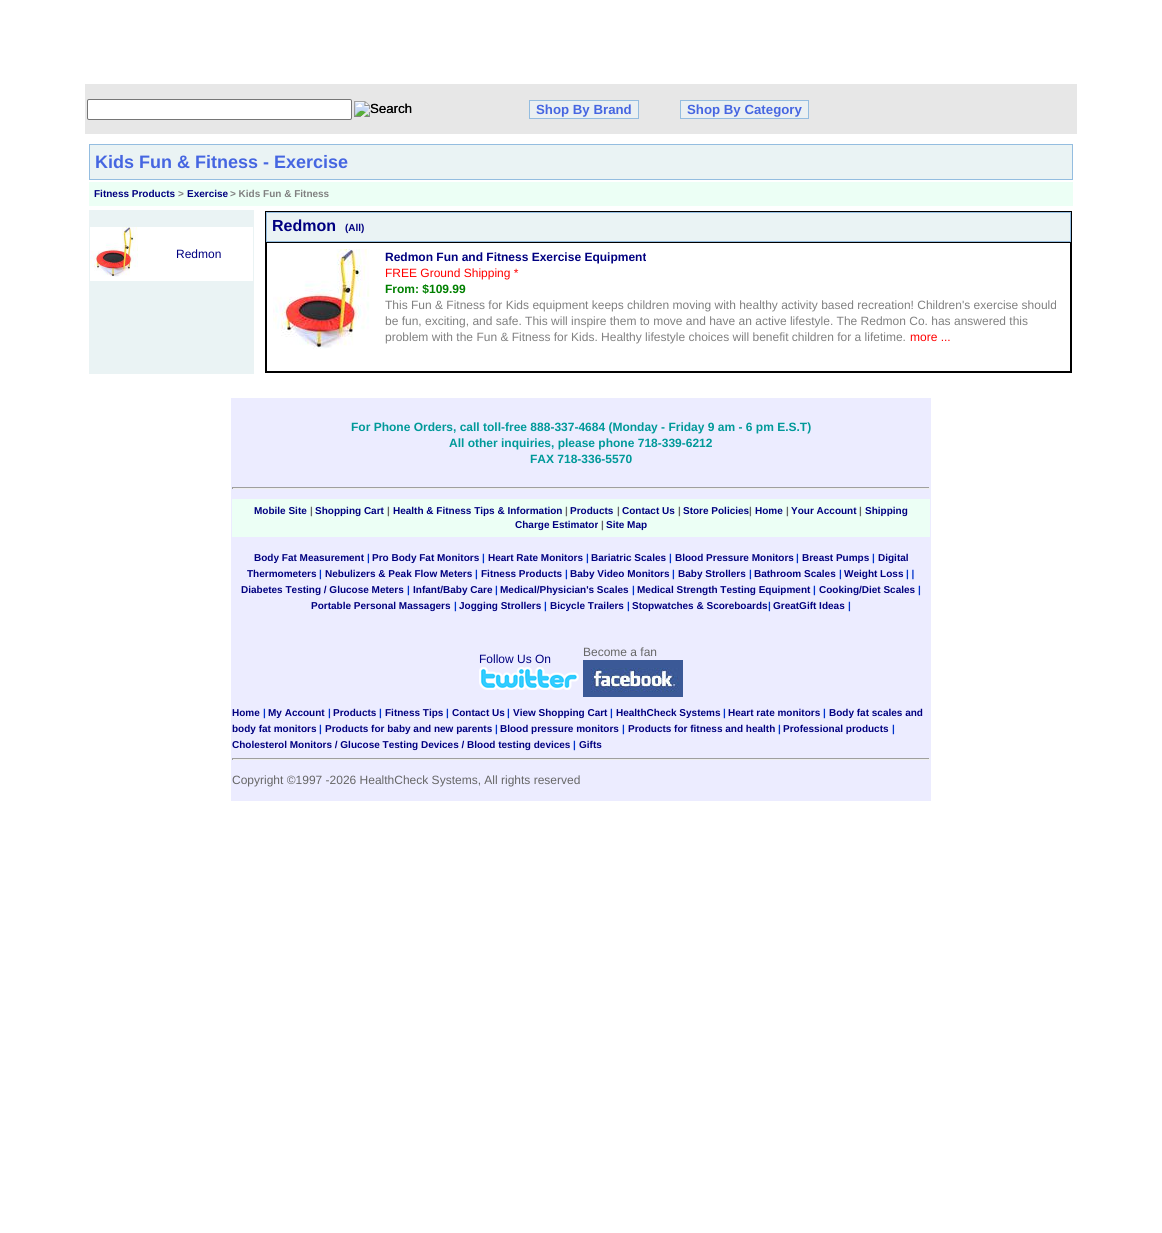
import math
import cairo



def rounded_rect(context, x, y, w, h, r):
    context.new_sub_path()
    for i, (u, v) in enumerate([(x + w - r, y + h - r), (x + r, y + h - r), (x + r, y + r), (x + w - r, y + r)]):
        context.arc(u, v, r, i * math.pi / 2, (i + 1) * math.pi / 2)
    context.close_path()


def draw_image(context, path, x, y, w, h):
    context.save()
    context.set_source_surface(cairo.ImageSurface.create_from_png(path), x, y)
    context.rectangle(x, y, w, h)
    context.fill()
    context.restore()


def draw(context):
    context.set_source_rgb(1, 1, 1)
    context.paint()
    context.set_source_rgb(231 / 255, 231 / 255, 231 / 255)
    context.rectangle(85, 84, 992, 50)
    context.fill()
    context.set_source_rgb(1, 1, 1)
    rounded_rect(context, 87.5, 99.5, 264, 20, 1.5)
    context.fill_preserve()
    context.set_source_rgb(118 / 255, 118 / 255, 118 / 255)
    context.set_line_width(1)
    context.stroke()
    draw_image(context, "images/1.png", 354, 101, 58, 16)
    context.set_source_rgb(234 / 255, 240 / 255, 242 / 255)
    context.rectangle(529.5, 100.5, 109, 18)
    context.fill_preserve()
    context.set_source_rgb(148 / 255, 189 / 255, 224 / 255)
    context.stroke()
    context.set_source_rgb(234 / 255, 240 / 255, 242 / 255)
    context.rectangle(680.5, 100.5, 128, 18)
    context.fill_preserve()
    context.set_source_rgb(148 / 255, 189 / 255, 224 / 255)
    context.stroke()
    context.set_source_rgb(234 / 255, 243 / 255, 244 / 255)
    context.rectangle(89.5, 144.5, 983, 35)
    context.fill_preserve()
    context.set_source_rgb(148 / 255, 189 / 255, 224 / 255)
    context.stroke()
    context.set_source_rgb(236 / 255, 1, 245 / 255)
    context.rectangle(89, 182, 984, 24)
    context.fill()
    context.set_source_rgb(234 / 255, 243 / 255, 244 / 255)
    context.rectangle(89, 210, 165, 164)
    context.fill()
    context.set_source_rgb(1, 1, 1)
    context.rectangle(90, 227, 163, 54)
    context.fill()
    draw_image(context, "images/2.png", 90, 227, 48, 50)
    context.rectangle(265.5, 211.5, 806, 161)
    context.set_source_rgb(0, 0, 0)
    context.stroke()
    context.set_source_rgb(234 / 255, 243 / 255, 244 / 255)
    context.rectangle(266.5, 212.5, 804, 29)
    context.fill_preserve()
    context.set_source_rgb(148 / 255, 189 / 255, 224 / 255)
    context.stroke()
    context.rectangle(266.5, 242.5, 804, 129)
    context.set_source_rgb(0, 0, 0)
    context.stroke()
    draw_image(context, "images/3.png", 273, 249, 97, 100)
    context.set_source_rgb(236 / 255, 236 / 255, 1)
    context.rectangle(231, 398, 700, 403)
    context.fill()
    context.set_source_rgb(159 / 255, 159 / 255, 159 / 255)
    context.rectangle(232, 487, 698, 1)
    context.fill()
    context.set_source_rgb(238 / 255, 238 / 255, 238 / 255)
    context.rectangle(929, 487, 1, 2)
    context.fill()
    context.rectangle(232, 488, 698, 1)
    context.fill()
    context.set_source_rgb(159 / 255, 159 / 255, 159 / 255)
    context.rectangle(232, 487, 1, 2)
    context.fill()
    context.set_source_rgb(236 / 255, 1, 245 / 255)
    context.rectangle(232, 499, 698, 38)
    context.fill()
    draw_image(context, "images/4.png", 583, 660, 100, 37)
    draw_image(context, "images/5.png", 479, 667, 100, 23)
    context.set_source_rgb(159 / 255, 159 / 255, 159 / 255)
    context.rectangle(232, 758, 698, 1)
    context.fill()
    context.set_source_rgb(238 / 255, 238 / 255, 238 / 255)
    context.rectangle(929, 758, 1, 2)
    context.fill()
    context.rectangle(232, 759, 698, 1)
    context.fill()
    context.set_source_rgb(159 / 255, 159 / 255, 159 / 255)
    context.rectangle(232, 758, 1, 2)
    context.fill()
    context.select_font_face("Liberation Sans")
    context.set_font_size(13.25)
    context.set_source_rgb(0, 0, 0)
    context.move_to(370, 113)
    context.show_text("Search")
    context.select_font_face("Liberation Sans", cairo.FontSlant.NORMAL, cairo.FontWeight.BOLD)
    context.set_source_rgb(70 / 255, 102 / 255, 225 / 255)
    context.move_to(536, 114)
    context.show_text("Shop By Brand")
    context.move_to(687, 114)
    context.show_text("Shop By Category")
    context.set_font_size(18)
    context.move_to(95, 168)
    context.show_text("Kids Fun & Fitness - Exercise")
    context.set_font_size(10)
    context.set_source_rgb(0, 0, 128 / 255)
    context.move_to(94, 197)
    context.show_text("Fitness Products")
    context.set_source_rgb(128 / 255, 128 / 255, 128 / 255)
    context.move_to(178, 197)
    context.show_text(">")
    context.set_source_rgb(0, 0, 128 / 255)
    context.move_to(187, 197)
    context.show_text("Exercise")
    context.set_source_rgb(128 / 255, 128 / 255, 128 / 255)
    context.move_to(230, 197)
    context.show_text("> Kids Fun & Fitness")
    context.select_font_face("Liberation Sans")
    context.set_font_size(12)
    context.set_source_rgb(0, 0, 128 / 255)
    context.move_to(176, 258)
    context.show_text("Redmon")
    context.select_font_face("Liberation Sans", cairo.FontSlant.NORMAL, cairo.FontWeight.BOLD)
    context.set_font_size(16)
    context.move_to(272, 231)
    context.show_text("Redmon")
    context.set_font_size(10)
    context.move_to(345, 231)
    context.show_text("(All)")
    context.set_font_size(12)
    context.move_to(385, 261)
    context.show_text("Redmon Fun and Fitness Exercise Equipment")
    context.select_font_face("Liberation Sans")
    context.set_source_rgb(1, 0, 0)
    context.move_to(385, 277)
    context.show_text("FREE Ground Shipping *")
    context.select_font_face("Liberation Sans", cairo.FontSlant.NORMAL, cairo.FontWeight.BOLD)
    context.set_source_rgb(0, 128 / 255, 0)
    context.move_to(385, 293)
    context.show_text("From: $109.99")
    context.select_font_face("Liberation Sans")
    context.set_source_rgb(128 / 255, 128 / 255, 128 / 255)
    context.move_to(385, 309)
    context.show_text("This Fun & Fitness for Kids equipment keeps children moving with healthy activity based recreation! Children's exercise should")
    context.move_to(385, 325)
    context.show_text("be fun, exciting, and safe. This will inspire them to move and have an active lifestyle. The Redmon Co. has answered this")
    context.move_to(385, 341)
    context.show_text("problem with the Fun & Fitness for Kids. Healthy lifestyle choices will benefit children for a lifetime.")
    context.set_source_rgb(1, 0, 0)
    context.move_to(910, 341)
    context.show_text("more ...")
    context.select_font_face("Liberation Sans", cairo.FontSlant.NORMAL, cairo.FontWeight.BOLD)
    context.set_source_rgb(0, 153 / 255, 153 / 255)
    context.move_to(351, 431)
    context.show_text("For Phone Orders, call toll-free 888-337-4684 (Monday - Friday 9 am - 6 pm E.S.T)")
    context.move_to(449, 447)
    context.show_text("All other inquiries, please phone 718-339-6212")
    context.move_to(530, 463)
    context.show_text("FAX 718-336-5570")
    context.set_font_size(10)
    context.set_source_rgb(0, 0, 128 / 255)
    context.move_to(254, 514)
    context.show_text("Mobile Site")
    context.set_source_rgb(102 / 255, 102 / 255, 102 / 255)
    context.move_to(310, 514)
    context.show_text("|")
    context.set_source_rgb(0, 0, 128 / 255)
    context.move_to(315, 514)
    context.show_text("Shopping Cart")
    context.set_source_rgb(102 / 255, 102 / 255, 102 / 255)
    context.move_to(387, 514)
    context.show_text("|")
    context.set_source_rgb(0, 0, 128 / 255)
    context.move_to(393, 514)
    context.show_text("Health & Fitness Tips & Information")
    context.set_source_rgb(102 / 255, 102 / 255, 102 / 255)
    context.move_to(565, 514)
    context.show_text("|")
    context.set_source_rgb(0, 0, 128 / 255)
    context.move_to(570, 514)
    context.show_text("Products")
    context.set_source_rgb(102 / 255, 102 / 255, 102 / 255)
    context.move_to(617, 514)
    context.show_text("|")
    context.set_source_rgb(0, 0, 128 / 255)
    context.move_to(622, 514)
    context.show_text("Contact Us")
    context.set_source_rgb(102 / 255, 102 / 255, 102 / 255)
    context.move_to(678, 514)
    context.show_text("|")
    context.set_source_rgb(0, 0, 128 / 255)
    context.move_to(683, 514)
    context.show_text("Store Policies")
    context.set_source_rgb(102 / 255, 102 / 255, 102 / 255)
    context.move_to(749, 514)
    context.show_text("|")
    context.set_source_rgb(0, 0, 128 / 255)
    context.move_to(755, 514)
    context.show_text("Home")
    context.set_source_rgb(102 / 255, 102 / 255, 102 / 255)
    context.move_to(786, 514)
    context.show_text("|")
    context.set_source_rgb(0, 0, 128 / 255)
    context.move_to(791, 514)
    context.show_text("Your Account")
    context.set_source_rgb(102 / 255, 102 / 255, 102 / 255)
    context.move_to(859, 514)
    context.show_text("|")
    context.set_source_rgb(0, 0, 128 / 255)
    context.move_to(865, 514)
    context.show_text("Shipping")
    context.move_to(515, 528)
    context.show_text("Charge Estimator")
    context.set_source_rgb(102 / 255, 102 / 255, 102 / 255)
    context.move_to(601, 528)
    context.show_text("|")
    context.set_source_rgb(0, 0, 128 / 255)
    context.move_to(606, 528)
    context.show_text("Site Map")
    context.move_to(254, 561)
    context.show_text("Body Fat Measurement")
    context.set_source_rgb(0, 51 / 255, 204 / 255)
    context.move_to(367, 561)
    context.show_text("|")
    context.set_source_rgb(0, 0, 128 / 255)
    context.move_to(372, 561)
    context.show_text("Pro Body Fat Monitors")
    context.set_source_rgb(0, 51 / 255, 204 / 255)
    context.move_to(482, 561)
    context.show_text("|")
    context.set_source_rgb(0, 0, 128 / 255)
    context.move_to(488, 561)
    context.show_text("Heart Rate Monitors")
    context.set_source_rgb(0, 51 / 255, 204 / 255)
    context.move_to(586, 561)
    context.show_text("|")
    context.set_source_rgb(0, 0, 128 / 255)
    context.move_to(591, 561)
    context.show_text("Bariatric Scales")
    context.set_source_rgb(0, 51 / 255, 204 / 255)
    context.move_to(669, 561)
    context.show_text("|")
    context.set_source_rgb(0, 0, 128 / 255)
    context.move_to(675, 561)
    context.show_text("Blood Pressure Monitors")
    context.set_source_rgb(0, 51 / 255, 204 / 255)
    context.move_to(796, 561)
    context.show_text("|")
    context.set_source_rgb(0, 0, 128 / 255)
    context.move_to(802, 561)
    context.show_text("Breast Pumps")
    context.set_source_rgb(0, 51 / 255, 204 / 255)
    context.move_to(872, 561)
    context.show_text("|")
    context.set_source_rgb(0, 0, 128 / 255)
    context.move_to(878, 561)
    context.show_text("Digital")
    context.move_to(247, 577)
    context.show_text("Thermometers")
    context.set_source_rgb(0, 51 / 255, 204 / 255)
    context.move_to(319, 577)
    context.show_text("|")
    context.set_source_rgb(0, 0, 128 / 255)
    context.move_to(325, 577)
    context.show_text("Nebulizers & Peak Flow Meters")
    context.set_source_rgb(0, 51 / 255, 204 / 255)
    context.move_to(475, 577)
    context.show_text("|")
    context.set_source_rgb(0, 0, 128 / 255)
    context.move_to(481, 577)
    context.show_text("Fitness Products")
    context.set_source_rgb(0, 51 / 255, 204 / 255)
    context.move_to(565, 577)
    context.show_text("|")
    context.set_source_rgb(0, 0, 128 / 255)
    context.move_to(570, 577)
    context.show_text("Baby Video Monitors")
    context.set_source_rgb(0, 51 / 255, 204 / 255)
    context.move_to(672, 577)
    context.show_text("|")
    context.set_source_rgb(0, 0, 128 / 255)
    context.move_to(678, 577)
    context.show_text("Baby Strollers")
    context.set_source_rgb(0, 51 / 255, 204 / 255)
    context.move_to(749, 577)
    context.show_text("|")
    context.set_source_rgb(0, 0, 128 / 255)
    context.move_to(754, 577)
    context.show_text("Bathroom Scales")
    context.set_source_rgb(0, 51 / 255, 204 / 255)
    context.move_to(839, 577)
    context.show_text("|")
    context.set_source_rgb(0, 0, 128 / 255)
    context.move_to(844, 577)
    context.show_text("Weight Loss")
    context.set_source_rgb(0, 51 / 255, 204 / 255)
    context.move_to(906, 577)
    context.show_text("| |")
    context.set_source_rgb(0, 0, 128 / 255)
    context.move_to(241, 593)
    context.show_text("Diabetes Testing / Glucose Meters")
    context.set_source_rgb(0, 51 / 255, 204 / 255)
    context.move_to(407, 593)
    context.show_text("|")
    context.set_source_rgb(0, 0, 128 / 255)
    context.move_to(413, 593)
    context.show_text("Infant/Baby Care")
    context.set_source_rgb(0, 51 / 255, 204 / 255)
    context.move_to(495, 593)
    context.show_text("|")
    context.set_source_rgb(0, 0, 128 / 255)
    context.move_to(500, 593)
    context.show_text("Medical/Physician's Scales")
    context.set_source_rgb(0, 51 / 255, 204 / 255)
    context.move_to(632, 593)
    context.show_text("|")
    context.set_source_rgb(0, 0, 128 / 255)
    context.move_to(637, 593)
    context.show_text("Medical Strength Testing Equipment")
    context.set_source_rgb(0, 51 / 255, 204 / 255)
    context.move_to(813, 593)
    context.show_text("|")
    context.set_source_rgb(0, 0, 128 / 255)
    context.move_to(819, 593)
    context.show_text("Cooking/Diet Scales")
    context.set_source_rgb(0, 51 / 255, 204 / 255)
    context.move_to(918, 593)
    context.show_text("|")
    context.set_source_rgb(0, 0, 128 / 255)
    context.move_to(311, 609)
    context.show_text("Portable Personal Massagers")
    context.set_source_rgb(0, 51 / 255, 204 / 255)
    context.move_to(454, 609)
    context.show_text("|")
    context.set_source_rgb(0, 0, 128 / 255)
    context.move_to(459, 609)
    context.show_text("Jogging Strollers")
    context.set_source_rgb(0, 51 / 255, 204 / 255)
    context.move_to(544, 609)
    context.show_text("|")
    context.set_source_rgb(0, 0, 128 / 255)
    context.move_to(550, 609)
    context.show_text("Bicycle Trailers")
    context.set_source_rgb(0, 51 / 255, 204 / 255)
    context.move_to(627, 609)
    context.show_text("|")
    context.set_source_rgb(0, 0, 128 / 255)
    context.move_to(632, 609)
    context.show_text("Stopwatches & Scoreboards")
    context.set_source_rgb(0, 51 / 255, 204 / 255)
    context.move_to(768, 609)
    context.show_text("|")
    context.set_source_rgb(0, 0, 128 / 255)
    context.move_to(773, 609)
    context.show_text("GreatGift Ideas")
    context.set_source_rgb(0, 51 / 255, 204 / 255)
    context.move_to(848, 609)
    context.show_text("|")
    context.select_font_face("Liberation Sans")
    context.set_font_size(12)
    context.set_source_rgb(102 / 255, 102 / 255, 102 / 255)
    context.move_to(583, 656)
    context.show_text("Become a fan")
    context.set_source_rgb(0, 0, 128 / 255)
    context.move_to(479, 663)
    context.show_text("Follow Us On")
    context.select_font_face("Liberation Sans", cairo.FontSlant.NORMAL, cairo.FontWeight.BOLD)
    context.set_font_size(10)
    context.move_to(232, 716)
    context.show_text("Home")
    context.set_source_rgb(0, 51 / 255, 204 / 255)
    context.move_to(263, 716)
    context.show_text("|")
    context.set_source_rgb(0, 0, 128 / 255)
    context.move_to(268, 716)
    context.show_text("My Account")
    context.set_source_rgb(0, 51 / 255, 204 / 255)
    context.move_to(328, 716)
    context.show_text("|")
    context.set_source_rgb(0, 0, 128 / 255)
    context.move_to(333, 716)
    context.show_text("Products")
    context.set_source_rgb(0, 51 / 255, 204 / 255)
    context.move_to(379, 716)
    context.show_text("|")
    context.set_source_rgb(0, 0, 128 / 255)
    context.move_to(385, 716)
    context.show_text("Fitness Tips")
    context.set_source_rgb(0, 51 / 255, 204 / 255)
    context.move_to(446, 716)
    context.show_text("|")
    context.set_source_rgb(0, 0, 128 / 255)
    context.move_to(452, 716)
    context.show_text("Contact Us")
    context.set_source_rgb(0, 51 / 255, 204 / 255)
    context.move_to(507, 716)
    context.show_text("|")
    context.set_source_rgb(0, 0, 128 / 255)
    context.move_to(513, 716)
    context.show_text("View Shopping Cart")
    context.set_source_rgb(0, 51 / 255, 204 / 255)
    context.move_to(610, 716)
    context.show_text("|")
    context.set_source_rgb(0, 0, 128 / 255)
    context.move_to(616, 716)
    context.show_text("HealthCheck Systems")
    context.set_source_rgb(0, 51 / 255, 204 / 255)
    context.move_to(723, 716)
    context.show_text("|")
    context.set_source_rgb(0, 0, 128 / 255)
    context.move_to(728, 716)
    context.show_text("Heart rate monitors")
    context.set_source_rgb(0, 51 / 255, 204 / 255)
    context.move_to(823, 716)
    context.show_text("|")
    context.set_source_rgb(0, 0, 128 / 255)
    context.move_to(829, 716)
    context.show_text("Body fat scales and")
    context.move_to(232, 732)
    context.show_text("body fat monitors")
    context.set_source_rgb(0, 51 / 255, 204 / 255)
    context.move_to(319, 732)
    context.show_text("|")
    context.set_source_rgb(0, 0, 128 / 255)
    context.move_to(325, 732)
    context.show_text("Products for baby and new parents")
    context.set_source_rgb(0, 51 / 255, 204 / 255)
    context.move_to(495, 732)
    context.show_text("|")
    context.set_source_rgb(0, 0, 128 / 255)
    context.move_to(500, 732)
    context.show_text("Blood pressure monitors")
    context.set_source_rgb(0, 51 / 255, 204 / 255)
    context.move_to(622, 732)
    context.show_text("|")
    context.set_source_rgb(0, 0, 128 / 255)
    context.move_to(628, 732)
    context.show_text("Products for fitness and health")
    context.set_source_rgb(0, 51 / 255, 204 / 255)
    context.move_to(778, 732)
    context.show_text("|")
    context.set_source_rgb(0, 0, 128 / 255)
    context.move_to(783, 732)
    context.show_text("Professional products")
    context.set_source_rgb(0, 51 / 255, 204 / 255)
    context.move_to(892, 732)
    context.show_text("|")
    context.set_source_rgb(0, 0, 128 / 255)
    context.move_to(232, 748)
    context.show_text("Cholesterol Monitors / Glucose Testing Devices / Blood testing devices")
    context.set_source_rgb(0, 51 / 255, 204 / 255)
    context.move_to(573, 748)
    context.show_text("|")
    context.set_source_rgb(0, 0, 128 / 255)
    context.move_to(579, 748)
    context.show_text("Gifts")
    context.select_font_face("Liberation Sans")
    context.set_font_size(12)
    context.set_source_rgb(102 / 255, 102 / 255, 102 / 255)
    context.move_to(232, 784)
    context.show_text("Copyright ©1997 -2026 HealthCheck Systems, All rights reserved")


surface = cairo.ImageSurface(cairo.Format.RGB24, 1162, 1233)
context = cairo.Context(surface)
options = cairo.FontOptions()
options.set_hint_metrics(cairo.HintMetrics.OFF)
options.set_hint_style(cairo.HintStyle.NONE)
context.set_font_options(options)
context.set_miter_limit(4)
draw(context)
surface.write_to_png("out.png")
